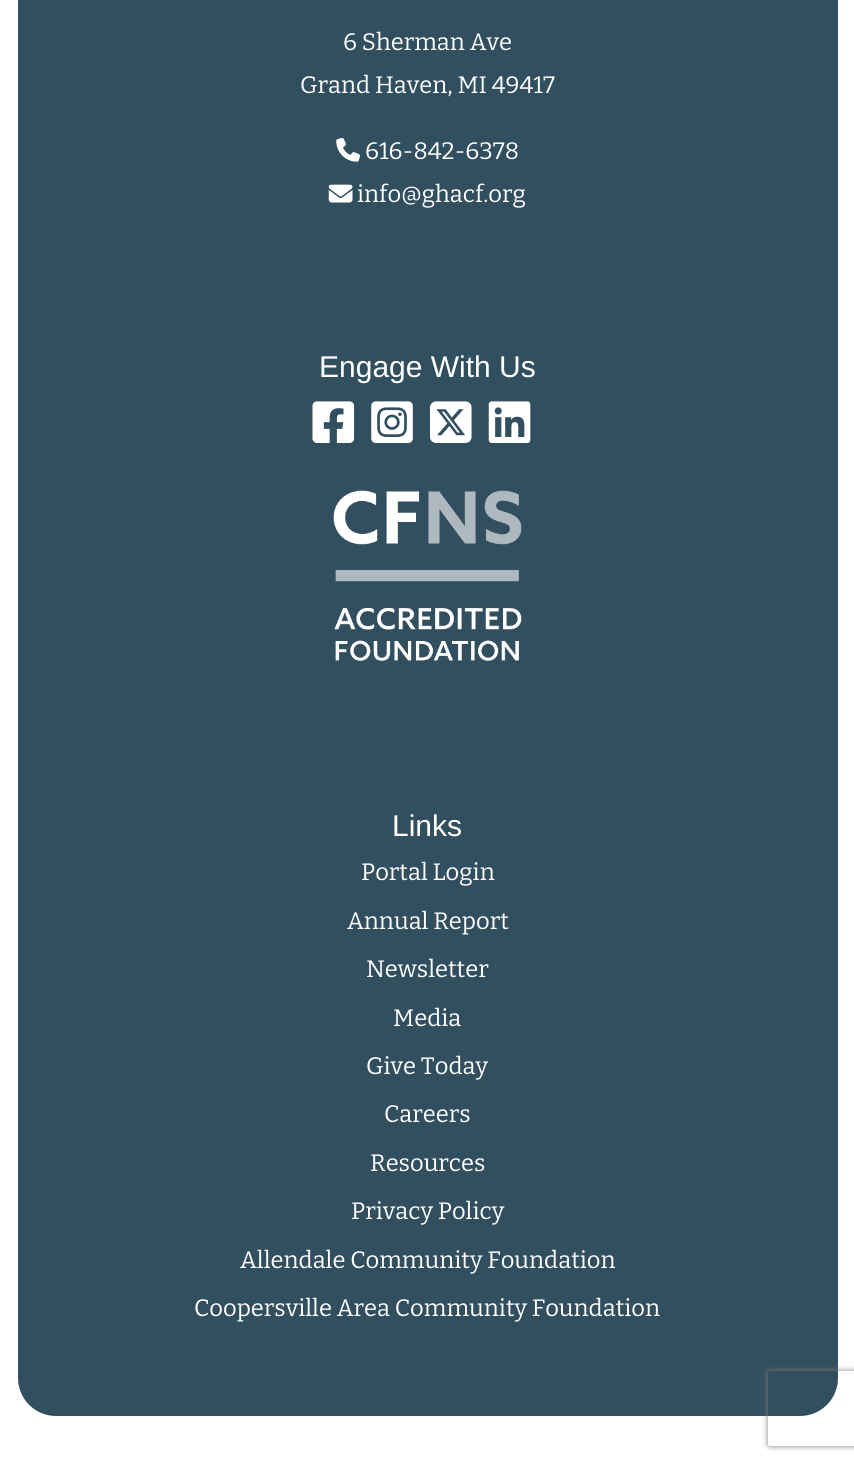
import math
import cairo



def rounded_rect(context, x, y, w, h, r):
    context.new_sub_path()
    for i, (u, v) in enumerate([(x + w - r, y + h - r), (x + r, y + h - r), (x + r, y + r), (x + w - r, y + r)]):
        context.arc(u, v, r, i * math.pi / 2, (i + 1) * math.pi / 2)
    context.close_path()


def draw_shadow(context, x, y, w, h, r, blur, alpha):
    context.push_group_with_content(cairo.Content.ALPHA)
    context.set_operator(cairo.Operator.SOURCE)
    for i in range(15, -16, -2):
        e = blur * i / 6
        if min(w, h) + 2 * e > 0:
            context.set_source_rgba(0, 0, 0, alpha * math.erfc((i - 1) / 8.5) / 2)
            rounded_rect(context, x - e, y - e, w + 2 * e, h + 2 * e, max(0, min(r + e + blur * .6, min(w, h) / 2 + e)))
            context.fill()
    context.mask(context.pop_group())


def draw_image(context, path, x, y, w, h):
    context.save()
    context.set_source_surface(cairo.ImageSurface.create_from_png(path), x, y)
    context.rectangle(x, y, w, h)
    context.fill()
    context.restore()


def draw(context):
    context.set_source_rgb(1, 1, 1)
    context.paint()
    context.set_source_rgb(50 / 255, 79 / 255, 95 / 255)
    rounded_rect(context, 18, -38, 820, 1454, 38)
    context.fill()
    draw_image(context, "images/1.png", 336, 138, 24, 24)
    draw_image(context, "images/2.png", 328, 184, 25, 19)
    draw_image(context, "images/3.png", 312, 401, 43, 42)
    draw_image(context, "images/4.png", 371, 401, 42, 42)
    draw_image(context, "images/5.png", 430, 401, 42, 42)
    draw_image(context, "images/6.png", 488, 401, 43, 42)
    draw_image(context, "images/7.png", 333, 490, 189, 171)
    context.save()
    context.set_fill_rule(cairo.FillRule.EVEN_ODD)
    context.new_path()
    context.move_to(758, 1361)
    context.line_to(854, 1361)
    context.line_to(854, 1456)
    context.line_to(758, 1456)
    context.close_path()
    context.move_to(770.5, 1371)
    context.line_to(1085.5, 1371)
    context.curve_to(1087, 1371, 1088, 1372, 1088, 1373.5)
    context.line_to(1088, 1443.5)
    context.curve_to(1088, 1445, 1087, 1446, 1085.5, 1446)
    context.line_to(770.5, 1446)
    context.curve_to(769, 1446, 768, 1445, 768, 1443.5)
    context.line_to(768, 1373.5)
    context.curve_to(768, 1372, 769, 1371, 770.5, 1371)
    context.close_path()
    context.clip()
    context.set_source_rgb(128 / 255, 128 / 255, 128 / 255)
    draw_shadow(context, 768, 1371, 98, 75, 2.5, 3, 1)
    context.restore()
    context.select_font_face("Bitter")
    context.set_font_size(23.75)
    context.set_source_rgb(1, 1, 1)
    context.move_to(343, 50)
    context.show_text("6 Sherman Ave")
    context.move_to(300, 93)
    context.show_text("Grand Haven, MI 49417")
    context.move_to(365, 159)
    context.show_text("616-842-6378")
    context.move_to(357, 202)
    context.show_text("info@ghacf.org")
    context.select_font_face("Liberation Sans")
    context.set_font_size(30)
    context.move_to(319, 377)
    context.show_text("Engage With Us")
    context.move_to(392, 836)
    context.show_text("Links")
    context.select_font_face("Bitter")
    context.set_font_size(23.75)
    context.move_to(361, 880)
    context.show_text("Portal Login")
    context.move_to(347, 929)
    context.show_text("Annual Report")
    context.move_to(366, 977)
    context.show_text("Newsletter")
    context.move_to(393, 1026)
    context.show_text("Media")
    context.move_to(366, 1074)
    context.show_text("Give Today")
    context.move_to(384, 1122)
    context.show_text("Careers")
    context.move_to(370, 1171)
    context.show_text("Resources")
    context.move_to(351, 1219)
    context.show_text("Privacy Policy")
    context.move_to(240, 1268)
    context.show_text("Allendale Community Foundation")
    context.move_to(194, 1316)
    context.show_text("Coopersville Area Community Foundation")


surface = cairo.ImageSurface(cairo.Format.RGB24, 854, 1463)
context = cairo.Context(surface)
options = cairo.FontOptions()
options.set_hint_metrics(cairo.HintMetrics.OFF)
options.set_hint_style(cairo.HintStyle.NONE)
context.set_font_options(options)
context.set_miter_limit(4)
draw(context)
surface.write_to_png("out.png")
